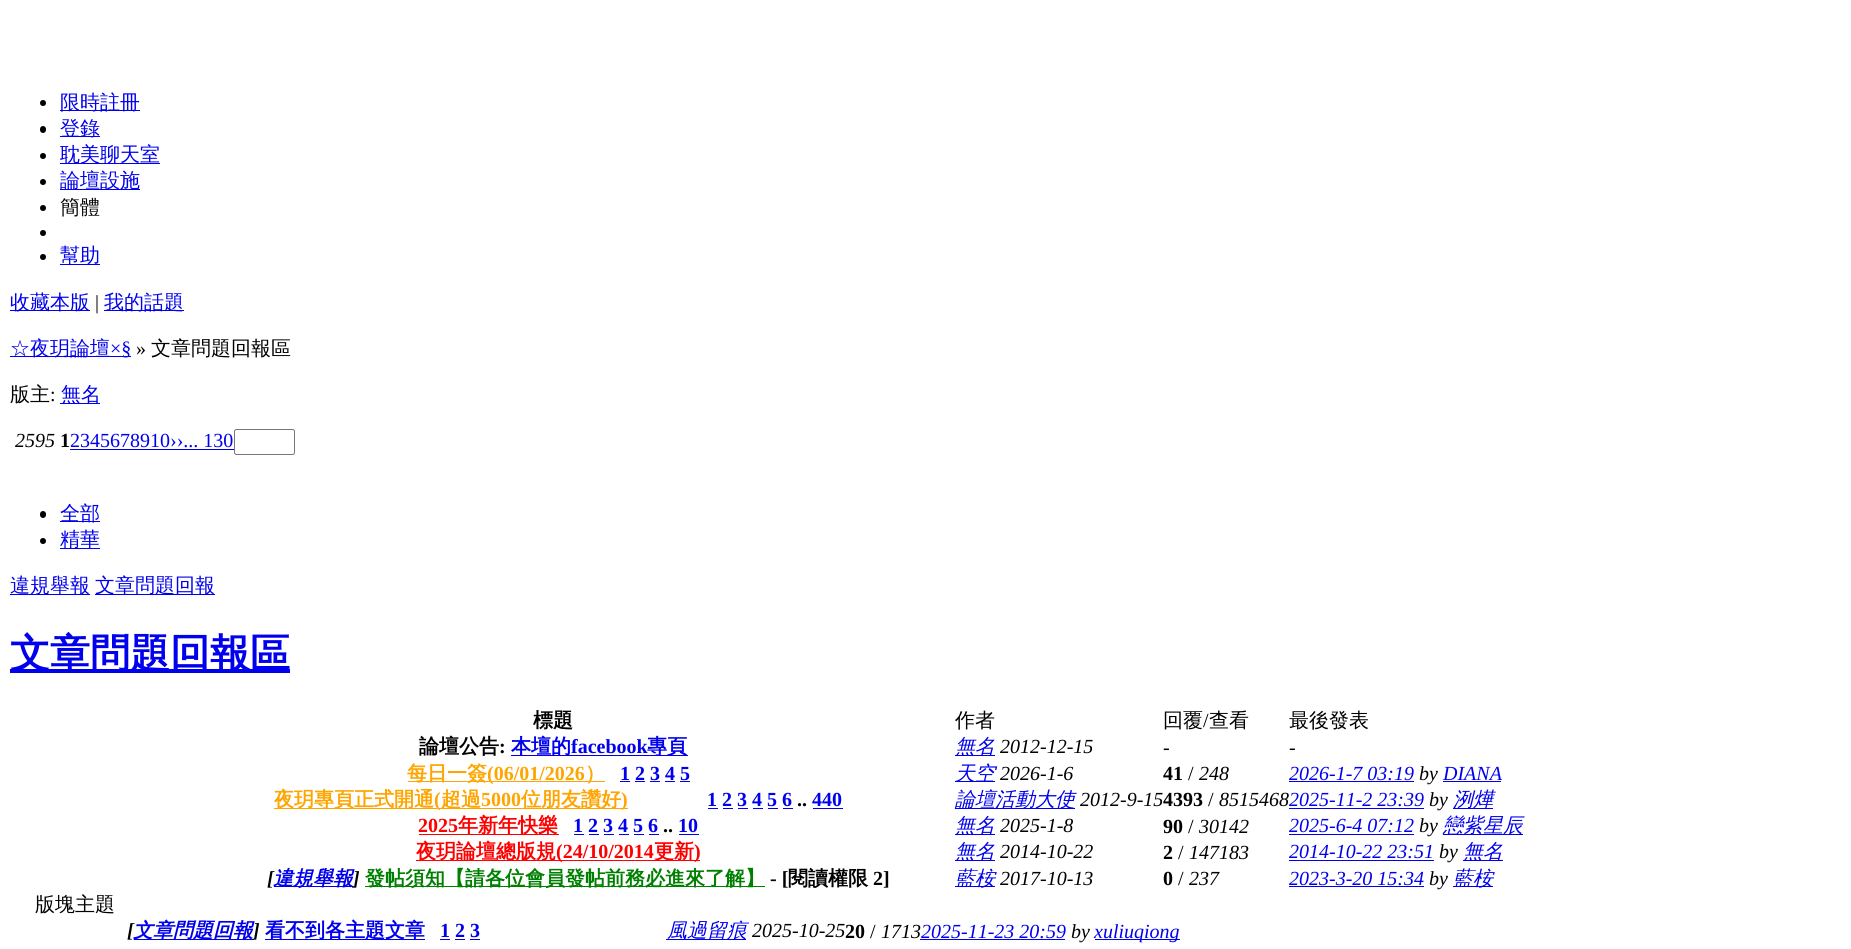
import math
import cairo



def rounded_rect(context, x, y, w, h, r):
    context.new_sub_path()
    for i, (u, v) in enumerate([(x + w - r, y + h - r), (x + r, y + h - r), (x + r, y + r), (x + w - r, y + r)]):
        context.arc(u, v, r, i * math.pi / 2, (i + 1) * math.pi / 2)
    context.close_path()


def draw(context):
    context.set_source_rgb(1, 1, 1)
    context.paint()
    context.set_source_rgb(0, 0, 0)
    context.arc(43, 103, 3, 0, 2 * math.pi)
    context.fill()
    context.set_source_rgb(0, 0, 238 / 255)
    context.rectangle(60, 110, 80, 1)
    context.fill()
    context.set_source_rgb(0, 0, 0)
    rounded_rect(context, 40, 126, 6, 7, 3)
    context.fill()
    context.set_source_rgb(0, 0, 238 / 255)
    context.rectangle(60, 136, 40, 1)
    context.fill()
    context.set_source_rgb(0, 0, 0)
    context.arc(43, 156, 3, 0, 2 * math.pi)
    context.fill()
    context.set_source_rgb(0, 0, 238 / 255)
    context.rectangle(60, 163, 100, 1)
    context.fill()
    context.set_source_rgb(0, 0, 0)
    context.arc(43, 182, 3, 0, 2 * math.pi)
    context.fill()
    context.set_source_rgb(0, 0, 238 / 255)
    context.rectangle(60, 189, 80, 1)
    context.fill()
    context.set_source_rgb(0, 0, 0)
    context.arc(43, 208, 3, 0, 2 * math.pi)
    context.fill()
    context.arc(43, 233, 3, 0, 2 * math.pi)
    context.fill()
    context.arc(43, 257, 3, 0, 2 * math.pi)
    context.fill()
    context.set_source_rgb(0, 0, 238 / 255)
    context.rectangle(60, 264, 40, 1)
    context.fill()
    context.rectangle(10, 310, 80, 1)
    context.fill()
    context.rectangle(104, 310, 80, 1)
    context.fill()
    context.rectangle(10, 356, 121, 1)
    context.fill()
    context.rectangle(60, 403, 40, 1)
    context.fill()
    context.rectangle(70, 449, 164, 1)
    context.fill()
    rounded_rect(context, 234.5, 429.5, 60, 25, 2)
    context.set_source_rgb(118 / 255, 118 / 255, 118 / 255)
    context.set_line_width(1)
    context.stroke()
    context.set_source_rgb(0, 0, 0)
    rounded_rect(context, 40, 511, 6, 7, 3)
    context.fill()
    context.set_source_rgb(0, 0, 238 / 255)
    context.rectangle(60, 521, 40, 1)
    context.fill()
    context.set_source_rgb(0, 0, 0)
    context.arc(43, 541, 3, 0, 2 * math.pi)
    context.fill()
    context.set_source_rgb(0, 0, 238 / 255)
    context.rectangle(60, 548, 40, 1)
    context.fill()
    context.rectangle(10, 594, 80, 1)
    context.fill()
    context.rectangle(95, 594, 120, 1)
    context.fill()
    context.rectangle(10, 669, 280, 4)
    context.fill()
    context.rectangle(511, 755, 177, 1)
    context.fill()
    context.rectangle(955, 755, 40, 1)
    context.fill()
    context.set_source_rgb(1, 165 / 255, 0)
    context.rectangle(408, 781, 197, 1)
    context.fill()
    context.set_source_rgb(0, 0, 238 / 255)
    context.rectangle(620, 781, 10, 1)
    context.fill()
    context.rectangle(635, 781, 10, 1)
    context.fill()
    context.rectangle(650, 781, 10, 1)
    context.fill()
    context.rectangle(665, 781, 10, 1)
    context.fill()
    context.rectangle(680, 781, 10, 1)
    context.fill()
    context.rectangle(955, 781, 40, 1)
    context.fill()
    context.rectangle(1289, 781, 125, 1)
    context.fill()
    context.rectangle(1443, 781, 58, 1)
    context.fill()
    context.set_source_rgb(1, 165 / 255, 0)
    context.rectangle(274, 808, 354, 1)
    context.fill()
    context.set_source_rgb(0, 0, 238 / 255)
    context.rectangle(708, 808, 10, 1)
    context.fill()
    context.rectangle(723, 808, 10, 1)
    context.fill()
    context.rectangle(738, 808, 10, 1)
    context.fill()
    context.rectangle(753, 808, 10, 1)
    context.fill()
    context.rectangle(768, 808, 10, 1)
    context.fill()
    context.rectangle(783, 808, 10, 1)
    context.fill()
    context.rectangle(813, 808, 30, 1)
    context.fill()
    context.rectangle(955, 808, 120, 1)
    context.fill()
    context.rectangle(1289, 808, 135, 1)
    context.fill()
    context.rectangle(1453, 808, 40, 1)
    context.fill()
    context.set_source_rgb(1, 0, 0)
    context.rectangle(419, 834, 140, 1)
    context.fill()
    context.set_source_rgb(0, 0, 238 / 255)
    context.rectangle(574, 834, 10, 1)
    context.fill()
    context.rectangle(589, 834, 10, 1)
    context.fill()
    context.rectangle(604, 834, 10, 1)
    context.fill()
    context.rectangle(619, 834, 10, 1)
    context.fill()
    context.rectangle(634, 834, 10, 1)
    context.fill()
    context.rectangle(649, 834, 10, 1)
    context.fill()
    context.rectangle(679, 834, 20, 1)
    context.fill()
    context.rectangle(955, 834, 40, 1)
    context.fill()
    context.rectangle(1289, 834, 125, 1)
    context.fill()
    context.rectangle(1443, 834, 80, 1)
    context.fill()
    context.set_source_rgb(1, 0, 0)
    context.rectangle(416, 860, 284, 1)
    context.fill()
    context.set_source_rgb(0, 0, 238 / 255)
    context.rectangle(955, 860, 40, 1)
    context.fill()
    context.rectangle(1289, 860, 145, 1)
    context.fill()
    context.rectangle(1463, 860, 40, 1)
    context.fill()
    context.set_source_rgb(0, 128 / 255, 0)
    context.rectangle(365, 886, 400, 1)
    context.fill()
    context.set_source_rgb(0, 0, 238 / 255)
    context.rectangle(955, 886, 40, 1)
    context.fill()
    context.rectangle(1289, 886, 135, 1)
    context.fill()
    context.rectangle(1453, 886, 40, 1)
    context.fill()
    context.rectangle(265, 939, 160, 1)
    context.fill()
    context.rectangle(440, 939, 10, 1)
    context.fill()
    context.rectangle(455, 939, 10, 1)
    context.fill()
    context.rectangle(470, 939, 10, 1)
    context.fill()
    context.rectangle(666, 939, 80, 1)
    context.fill()
    context.rectangle(920, 939, 145, 1)
    context.fill()
    context.rectangle(1095, 939, 85, 1)
    context.fill()
    context.select_font_face("WenQuanYi Zen Hei Medium")
    context.set_font_size(20)
    context.move_to(60, 109)
    context.show_text("限時註冊")
    context.move_to(60, 135)
    context.show_text("登錄")
    context.move_to(60, 161)
    context.show_text("耽美聊天室")
    context.move_to(60, 187)
    context.show_text("論壇設施")
    context.set_source_rgb(0, 0, 0)
    context.move_to(60, 214)
    context.show_text("簡體")
    context.set_source_rgb(0, 0, 238 / 255)
    context.move_to(60, 262)
    context.show_text("幫助")
    context.move_to(10, 309)
    context.show_text("收藏本版")
    context.select_font_face("Liberation Serif")
    context.set_source_rgb(0, 0, 0)
    context.move_to(95, 309)
    context.show_text("|")
    context.select_font_face("WenQuanYi Zen Hei Medium")
    context.set_source_rgb(0, 0, 238 / 255)
    context.move_to(104, 309)
    context.show_text("我的話題")
    context.move_to(10, 355)
    context.show_text("☆夜玥論壇")
    context.select_font_face("Liberation Serif")
    context.move_to(110, 355)
    context.show_text("×§")
    context.set_source_rgb(0, 0, 0)
    context.move_to(136, 355)
    context.show_text("»")
    context.select_font_face("WenQuanYi Zen Hei Medium")
    context.move_to(151, 355)
    context.show_text("文章問題回報區")
    context.move_to(10, 401)
    context.show_text("版主")
    context.select_font_face("Liberation Serif")
    context.move_to(50, 401)
    context.show_text(":")
    context.select_font_face("WenQuanYi Zen Hei Medium")
    context.set_source_rgb(0, 0, 238 / 255)
    context.move_to(61, 401)
    context.show_text("無名")
    context.select_font_face("Liberation Serif", cairo.FontSlant.ITALIC)
    context.set_source_rgb(0, 0, 0)
    context.move_to(15, 447)
    context.show_text("2595")
    context.select_font_face("Liberation Serif", cairo.FontSlant.NORMAL, cairo.FontWeight.BOLD)
    context.move_to(60, 447)
    context.show_text("1")
    context.select_font_face("Liberation Serif")
    context.set_source_rgb(0, 0, 238 / 255)
    context.move_to(70, 447)
    context.show_text("2345678910››... 130")
    context.select_font_face("WenQuanYi Zen Hei Medium")
    context.move_to(60, 520)
    context.show_text("全部")
    context.move_to(60, 546)
    context.show_text("精華")
    context.move_to(10, 592)
    context.show_text("違規舉報")
    context.move_to(95, 592)
    context.show_text("文章問題回報")
    context.select_font_face("WenQuanYi Zen Hei", cairo.FontSlant.NORMAL, cairo.FontWeight.BOLD)
    context.set_font_size(40)
    context.move_to(10, 667)
    context.show_text("文章問題回報區")
    context.set_font_size(20)
    context.set_source_rgb(0, 0, 0)
    context.move_to(533, 727)
    context.show_text("標題")
    context.select_font_face("WenQuanYi Zen Hei Medium")
    context.move_to(955, 727)
    context.show_text("作者")
    context.move_to(1163, 727)
    context.show_text("回覆")
    context.select_font_face("Liberation Serif")
    context.move_to(1203, 727)
    context.show_text("/")
    context.select_font_face("WenQuanYi Zen Hei Medium")
    context.move_to(1209, 727)
    context.show_text("查看")
    context.move_to(1289, 727)
    context.show_text("最後發表")
    context.select_font_face("WenQuanYi Zen Hei", cairo.FontSlant.NORMAL, cairo.FontWeight.BOLD)
    context.move_to(419, 753)
    context.show_text("論壇公告")
    context.select_font_face("Liberation Serif", cairo.FontSlant.NORMAL, cairo.FontWeight.BOLD)
    context.move_to(499, 753)
    context.show_text(":")
    context.select_font_face("WenQuanYi Zen Hei", cairo.FontSlant.NORMAL, cairo.FontWeight.BOLD)
    context.set_source_rgb(0, 0, 238 / 255)
    context.move_to(511, 753)
    context.show_text("本壇的")
    context.select_font_face("Liberation Serif", cairo.FontSlant.NORMAL, cairo.FontWeight.BOLD)
    context.move_to(571, 753)
    context.show_text("facebook")
    context.select_font_face("WenQuanYi Zen Hei", cairo.FontSlant.NORMAL, cairo.FontWeight.BOLD)
    context.move_to(647, 753)
    context.show_text("專頁")
    context.select_font_face("WenQuanYi Zen Hei Medium", cairo.FontSlant.ITALIC)
    context.move_to(955, 753)
    context.show_text("無名")
    context.select_font_face("Liberation Serif", cairo.FontSlant.ITALIC)
    context.set_source_rgb(0, 0, 0)
    context.move_to(1000, 753)
    context.show_text("2012-12-15")
    context.select_font_face("Liberation Serif")
    context.move_to(1163, 754)
    context.show_text("-")
    context.move_to(1289, 754)
    context.show_text("-")
    context.select_font_face("WenQuanYi Zen Hei", cairo.FontSlant.NORMAL, cairo.FontWeight.BOLD)
    context.set_source_rgb(1, 165 / 255, 0)
    context.move_to(407, 780)
    context.show_text("每日一簽")
    context.select_font_face("Liberation Serif", cairo.FontSlant.NORMAL, cairo.FontWeight.BOLD)
    context.move_to(487, 780)
    context.show_text("(06/01/2026")
    context.select_font_face("WenQuanYi Zen Hei", cairo.FontSlant.NORMAL, cairo.FontWeight.BOLD)
    context.move_to(585, 780)
    context.show_text("）")
    context.select_font_face("Liberation Serif", cairo.FontSlant.NORMAL, cairo.FontWeight.BOLD)
    context.set_source_rgb(0, 0, 238 / 255)
    context.move_to(620, 780)
    context.show_text("1 2 3 4 5")
    context.select_font_face("WenQuanYi Zen Hei Medium", cairo.FontSlant.ITALIC)
    context.move_to(955, 780)
    context.show_text("天空")
    context.select_font_face("Liberation Serif", cairo.FontSlant.ITALIC)
    context.set_source_rgb(0, 0, 0)
    context.move_to(1000, 780)
    context.show_text("2026-1-6")
    context.select_font_face("Liberation Serif", cairo.FontSlant.NORMAL, cairo.FontWeight.BOLD)
    context.move_to(1163, 780)
    context.show_text("41")
    context.select_font_face("Liberation Serif")
    context.move_to(1188, 780)
    context.show_text("/")
    context.select_font_face("Liberation Serif", cairo.FontSlant.ITALIC)
    context.move_to(1199, 780)
    context.show_text("248")
    context.set_source_rgb(0, 0, 238 / 255)
    context.move_to(1289, 780)
    context.show_text("2026-1-7 03:19")
    context.set_source_rgb(0, 0, 0)
    context.move_to(1419, 780)
    context.show_text("by")
    context.set_source_rgb(0, 0, 238 / 255)
    context.move_to(1443, 780)
    context.show_text("DIANA")
    context.select_font_face("WenQuanYi Zen Hei", cairo.FontSlant.NORMAL, cairo.FontWeight.BOLD)
    context.set_source_rgb(1, 165 / 255, 0)
    context.move_to(274, 806)
    context.show_text("夜玥專頁正式開通")
    context.select_font_face("Liberation Serif", cairo.FontSlant.NORMAL, cairo.FontWeight.BOLD)
    context.move_to(434, 806)
    context.show_text("(")
    context.select_font_face("WenQuanYi Zen Hei", cairo.FontSlant.NORMAL, cairo.FontWeight.BOLD)
    context.move_to(441, 806)
    context.show_text("超過")
    context.select_font_face("Liberation Serif", cairo.FontSlant.NORMAL, cairo.FontWeight.BOLD)
    context.move_to(481, 806)
    context.show_text("5000")
    context.select_font_face("WenQuanYi Zen Hei", cairo.FontSlant.NORMAL, cairo.FontWeight.BOLD)
    context.move_to(521, 806)
    context.show_text("位朋友讚好")
    context.select_font_face("Liberation Serif", cairo.FontSlant.NORMAL, cairo.FontWeight.BOLD)
    context.move_to(621, 806)
    context.show_text(")")
    context.set_source_rgb(0, 0, 238 / 255)
    context.move_to(707, 806)
    context.show_text("1 2 3 4 5 6")
    context.set_source_rgb(0, 0, 0)
    context.move_to(797, 806)
    context.show_text("..")
    context.set_source_rgb(0, 0, 238 / 255)
    context.move_to(812, 806)
    context.show_text("440")
    context.select_font_face("WenQuanYi Zen Hei Medium", cairo.FontSlant.ITALIC)
    context.move_to(955, 806)
    context.show_text("論壇活動大使")
    context.select_font_face("Liberation Serif", cairo.FontSlant.ITALIC)
    context.set_source_rgb(0, 0, 0)
    context.move_to(1080, 806)
    context.show_text("2012-9-15")
    context.select_font_face("Liberation Serif", cairo.FontSlant.NORMAL, cairo.FontWeight.BOLD)
    context.move_to(1163, 806)
    context.show_text("4393")
    context.select_font_face("Liberation Serif")
    context.move_to(1208, 806)
    context.show_text("/")
    context.select_font_face("Liberation Serif", cairo.FontSlant.ITALIC)
    context.move_to(1219, 806)
    context.show_text("8515468")
    context.set_source_rgb(0, 0, 238 / 255)
    context.move_to(1289, 806)
    context.show_text("2025-11-2 23:39")
    context.set_source_rgb(0, 0, 0)
    context.move_to(1429, 806)
    context.show_text("by")
    context.select_font_face("WenQuanYi Zen Hei Medium", cairo.FontSlant.ITALIC)
    context.set_source_rgb(0, 0, 238 / 255)
    context.move_to(1453, 806)
    context.show_text("洌燁")
    context.select_font_face("Liberation Serif", cairo.FontSlant.NORMAL, cairo.FontWeight.BOLD)
    context.set_source_rgb(1, 0, 0)
    context.move_to(418, 832)
    context.show_text("2025")
    context.select_font_face("WenQuanYi Zen Hei", cairo.FontSlant.NORMAL, cairo.FontWeight.BOLD)
    context.move_to(458, 832)
    context.show_text("年新年快樂")
    context.select_font_face("Liberation Serif", cairo.FontSlant.NORMAL, cairo.FontWeight.BOLD)
    context.set_source_rgb(0, 0, 238 / 255)
    context.move_to(573, 832)
    context.show_text("1 2 3 4 5 6")
    context.set_source_rgb(0, 0, 0)
    context.move_to(663, 832)
    context.show_text("..")
    context.set_source_rgb(0, 0, 238 / 255)
    context.move_to(678, 832)
    context.show_text("10")
    context.select_font_face("WenQuanYi Zen Hei Medium", cairo.FontSlant.ITALIC)
    context.move_to(955, 832)
    context.show_text("無名")
    context.select_font_face("Liberation Serif", cairo.FontSlant.ITALIC)
    context.set_source_rgb(0, 0, 0)
    context.move_to(1000, 832)
    context.show_text("2025-1-8")
    context.select_font_face("Liberation Serif", cairo.FontSlant.NORMAL, cairo.FontWeight.BOLD)
    context.move_to(1163, 833)
    context.show_text("90")
    context.select_font_face("Liberation Serif")
    context.move_to(1188, 833)
    context.show_text("/")
    context.select_font_face("Liberation Serif", cairo.FontSlant.ITALIC)
    context.move_to(1199, 833)
    context.show_text("30142")
    context.set_source_rgb(0, 0, 238 / 255)
    context.move_to(1289, 832)
    context.show_text("2025-6-4 07:12")
    context.set_source_rgb(0, 0, 0)
    context.move_to(1419, 832)
    context.show_text("by")
    context.select_font_face("WenQuanYi Zen Hei Medium", cairo.FontSlant.ITALIC)
    context.set_source_rgb(0, 0, 238 / 255)
    context.move_to(1443, 832)
    context.show_text("戀紫星辰")
    context.select_font_face("WenQuanYi Zen Hei", cairo.FontSlant.NORMAL, cairo.FontWeight.BOLD)
    context.set_source_rgb(1, 0, 0)
    context.move_to(416, 858)
    context.show_text("夜玥論壇總版規")
    context.select_font_face("Liberation Serif", cairo.FontSlant.NORMAL, cairo.FontWeight.BOLD)
    context.move_to(556, 858)
    context.show_text("(24/10/2014")
    context.select_font_face("WenQuanYi Zen Hei", cairo.FontSlant.NORMAL, cairo.FontWeight.BOLD)
    context.move_to(654, 858)
    context.show_text("更新")
    context.select_font_face("Liberation Serif", cairo.FontSlant.NORMAL, cairo.FontWeight.BOLD)
    context.move_to(694, 858)
    context.show_text(")")
    context.select_font_face("WenQuanYi Zen Hei Medium", cairo.FontSlant.ITALIC)
    context.set_source_rgb(0, 0, 238 / 255)
    context.move_to(955, 858)
    context.show_text("無名")
    context.select_font_face("Liberation Serif", cairo.FontSlant.ITALIC)
    context.set_source_rgb(0, 0, 0)
    context.move_to(1000, 858)
    context.show_text("2014-10-22")
    context.select_font_face("Liberation Serif", cairo.FontSlant.NORMAL, cairo.FontWeight.BOLD)
    context.move_to(1163, 859)
    context.show_text("2")
    context.select_font_face("Liberation Serif")
    context.move_to(1178, 859)
    context.show_text("/")
    context.select_font_face("Liberation Serif", cairo.FontSlant.ITALIC)
    context.move_to(1189, 859)
    context.show_text("147183")
    context.set_source_rgb(0, 0, 238 / 255)
    context.move_to(1289, 858)
    context.show_text("2014-10-22 23:51")
    context.set_source_rgb(0, 0, 0)
    context.move_to(1439, 858)
    context.show_text("by")
    context.select_font_face("WenQuanYi Zen Hei Medium", cairo.FontSlant.ITALIC)
    context.set_source_rgb(0, 0, 238 / 255)
    context.move_to(1463, 858)
    context.show_text("無名")
    context.select_font_face("Liberation Serif", cairo.FontSlant.ITALIC, cairo.FontWeight.BOLD)
    context.set_source_rgb(0, 0, 0)
    context.move_to(267, 885)
    context.show_text("[")
    context.set_source_rgb(0, 0, 238 / 255)
    context.rectangle(274, 886, 80, 1)
    context.fill()
    context.select_font_face("WenQuanYi Zen Hei", cairo.FontSlant.ITALIC, cairo.FontWeight.BOLD)
    context.move_to(273, 885)
    context.show_text("違規舉報")
    context.select_font_face("Liberation Serif", cairo.FontSlant.ITALIC, cairo.FontWeight.BOLD)
    context.set_source_rgb(0, 0, 0)
    context.move_to(353, 885)
    context.show_text("]")
    context.select_font_face("WenQuanYi Zen Hei", cairo.FontSlant.NORMAL, cairo.FontWeight.BOLD)
    context.set_source_rgb(0, 128 / 255, 0)
    context.move_to(365, 885)
    context.show_text("發帖須知【請各位會員發帖前務必進來了解】")
    context.select_font_face("Liberation Serif", cairo.FontSlant.NORMAL, cairo.FontWeight.BOLD)
    context.set_source_rgb(0, 0, 0)
    context.move_to(770, 885)
    context.show_text("- [")
    context.select_font_face("WenQuanYi Zen Hei", cairo.FontSlant.NORMAL, cairo.FontWeight.BOLD)
    context.move_to(788, 885)
    context.show_text("閱讀權限")
    context.select_font_face("Liberation Serif", cairo.FontSlant.NORMAL, cairo.FontWeight.BOLD)
    context.move_to(873, 885)
    context.show_text("2]")
    context.select_font_face("WenQuanYi Zen Hei Medium", cairo.FontSlant.ITALIC)
    context.set_source_rgb(0, 0, 238 / 255)
    context.move_to(955, 885)
    context.show_text("藍桉")
    context.select_font_face("Liberation Serif", cairo.FontSlant.ITALIC)
    context.set_source_rgb(0, 0, 0)
    context.move_to(1000, 885)
    context.show_text("2017-10-13")
    context.select_font_face("Liberation Serif", cairo.FontSlant.NORMAL, cairo.FontWeight.BOLD)
    context.move_to(1163, 885)
    context.show_text("0")
    context.select_font_face("Liberation Serif")
    context.move_to(1178, 885)
    context.show_text("/")
    context.select_font_face("Liberation Serif", cairo.FontSlant.ITALIC)
    context.move_to(1189, 885)
    context.show_text("237")
    context.set_source_rgb(0, 0, 238 / 255)
    context.move_to(1289, 885)
    context.show_text("2023-3-20 15:34")
    context.set_source_rgb(0, 0, 0)
    context.move_to(1429, 885)
    context.show_text("by")
    context.select_font_face("WenQuanYi Zen Hei Medium", cairo.FontSlant.ITALIC)
    context.set_source_rgb(0, 0, 238 / 255)
    context.move_to(1453, 885)
    context.show_text("藍桉")
    context.select_font_face("WenQuanYi Zen Hei Medium")
    context.set_source_rgb(0, 0, 0)
    context.move_to(35, 911)
    context.show_text("版塊主題")
    context.select_font_face("Liberation Serif", cairo.FontSlant.ITALIC, cairo.FontWeight.BOLD)
    context.move_to(127, 937)
    context.show_text("[")
    context.set_source_rgb(0, 0, 238 / 255)
    context.rectangle(134, 939, 120, 1)
    context.fill()
    context.select_font_face("WenQuanYi Zen Hei", cairo.FontSlant.ITALIC, cairo.FontWeight.BOLD)
    context.move_to(133, 937)
    context.show_text("文章問題回報")
    context.select_font_face("Liberation Serif", cairo.FontSlant.ITALIC, cairo.FontWeight.BOLD)
    context.set_source_rgb(0, 0, 0)
    context.move_to(253, 937)
    context.show_text("]")
    context.select_font_face("WenQuanYi Zen Hei", cairo.FontSlant.NORMAL, cairo.FontWeight.BOLD)
    context.set_source_rgb(0, 0, 238 / 255)
    context.move_to(265, 937)
    context.show_text("看不到各主題文章")
    context.select_font_face("Liberation Serif", cairo.FontSlant.NORMAL, cairo.FontWeight.BOLD)
    context.move_to(440, 937)
    context.show_text("1 2 3")
    context.select_font_face("WenQuanYi Zen Hei Medium", cairo.FontSlant.ITALIC)
    context.move_to(667, 937)
    context.show_text("風過留痕")
    context.select_font_face("Liberation Serif", cairo.FontSlant.ITALIC)
    context.set_source_rgb(0, 0, 0)
    context.move_to(752, 937)
    context.show_text("2025-10-25")
    context.select_font_face("Liberation Serif", cairo.FontSlant.NORMAL, cairo.FontWeight.BOLD)
    context.move_to(845, 938)
    context.show_text("20")
    context.select_font_face("Liberation Serif")
    context.move_to(870, 938)
    context.show_text("/")
    context.select_font_face("Liberation Serif", cairo.FontSlant.ITALIC)
    context.move_to(881, 938)
    context.show_text("1713")
    context.set_source_rgb(0, 0, 238 / 255)
    context.move_to(921, 938)
    context.show_text("2025-11-23 20:59")
    context.set_source_rgb(0, 0, 0)
    context.move_to(1071, 938)
    context.show_text("by")
    context.set_source_rgb(0, 0, 238 / 255)
    context.move_to(1094, 938)
    context.show_text("xuliuqiong")


surface = cairo.ImageSurface(cairo.Format.RGB24, 1851, 949)
context = cairo.Context(surface)
options = cairo.FontOptions()
options.set_hint_metrics(cairo.HintMetrics.OFF)
options.set_hint_style(cairo.HintStyle.NONE)
context.set_font_options(options)
context.set_miter_limit(4)
draw(context)
surface.write_to_png("out.png")
